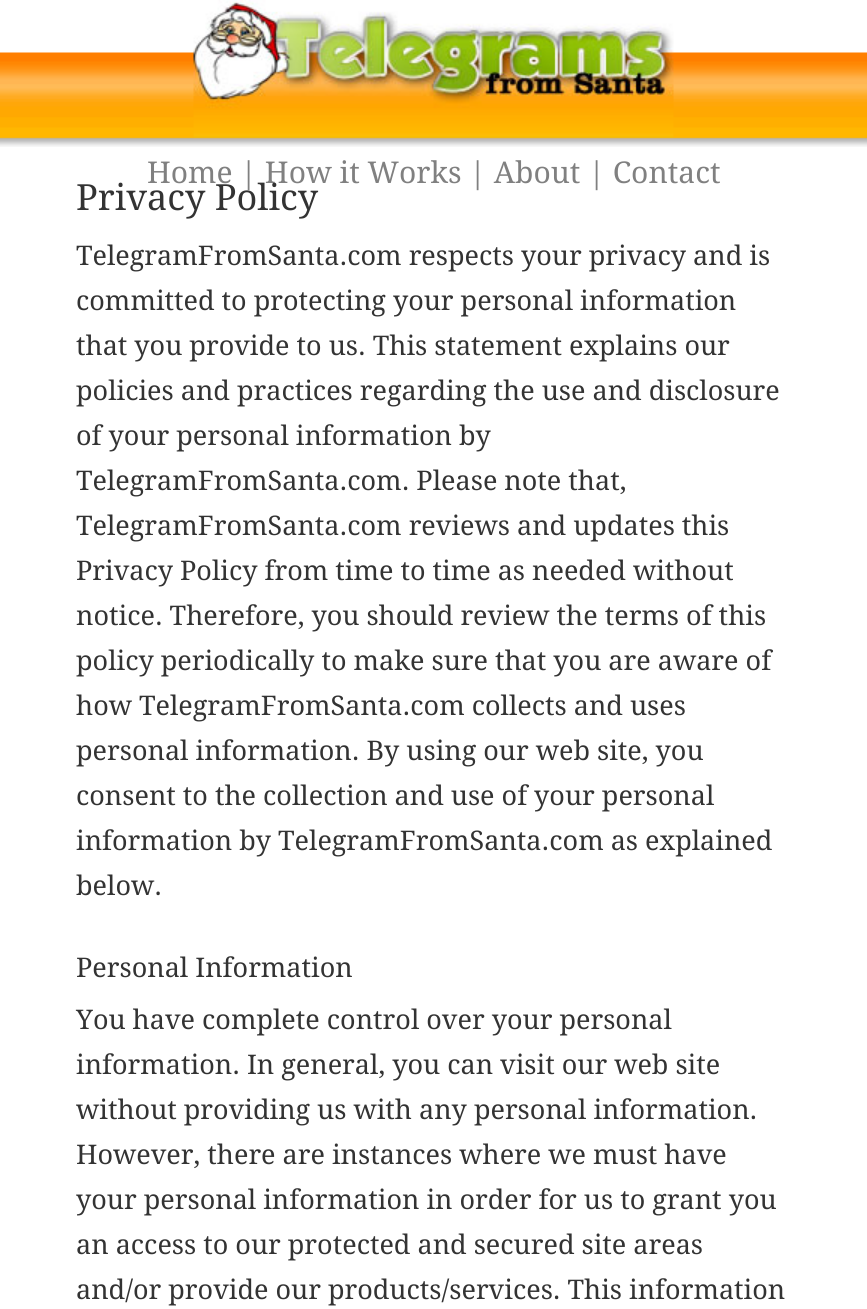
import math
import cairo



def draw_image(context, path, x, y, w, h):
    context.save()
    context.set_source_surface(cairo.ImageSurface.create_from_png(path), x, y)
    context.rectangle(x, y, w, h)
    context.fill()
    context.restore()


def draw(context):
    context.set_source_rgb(1, 1, 1)
    context.paint()
    draw_image(context, "images/1.png", 0, 52, 867, 95)
    draw_image(context, "images/2.png", 193, 0, 481, 140)
    context.select_font_face("Droid Serif")
    context.set_font_size(30)
    context.set_source_rgb(128 / 255, 128 / 255, 128 / 255)
    context.move_to(147, 183)
    context.show_text("Home | How it Works | About | Contact")
    context.set_font_size(36)
    context.set_source_rgb(51 / 255, 51 / 255, 51 / 255)
    context.move_to(76, 210)
    context.show_text("Privacy Policy")
    context.set_font_size(27)
    context.move_to(76, 265)
    context.show_text("TelegramFromSanta.com respects your privacy and is")
    context.move_to(76, 310)
    context.show_text("committed to protecting your personal information")
    context.move_to(76, 355)
    context.show_text("that you provide to us. This statement explains our")
    context.move_to(76, 400)
    context.show_text("policies and practices regarding the use and disclosure")
    context.move_to(76, 445)
    context.show_text("of your personal information by")
    context.move_to(76, 490)
    context.show_text("TelegramFromSanta.com. Please note that,")
    context.move_to(76, 535)
    context.show_text("TelegramFromSanta.com reviews and updates this")
    context.move_to(76, 580)
    context.show_text("Privacy Policy from time to time as needed without")
    context.move_to(76, 625)
    context.show_text("notice. Therefore, you should review the terms of this")
    context.move_to(76, 670)
    context.show_text("policy periodically to make sure that you are aware of")
    context.move_to(76, 715)
    context.show_text("how TelegramFromSanta.com collects and uses")
    context.move_to(76, 760)
    context.show_text("personal information. By using our web site, you")
    context.move_to(76, 805)
    context.show_text("consent to the collection and use of your personal")
    context.move_to(76, 850)
    context.show_text("information by TelegramFromSanta.com as explained")
    context.move_to(76, 895)
    context.show_text("below.")
    context.move_to(76, 977)
    context.show_text("Personal Information")
    context.move_to(76, 1029)
    context.show_text("You have complete control over your personal")
    context.move_to(76, 1074)
    context.show_text("information. In general, you can visit our web site")
    context.move_to(76, 1119)
    context.show_text("without providing us with any personal information.")
    context.move_to(76, 1164)
    context.show_text("However, there are instances where we must have")
    context.move_to(76, 1209)
    context.show_text("your personal information in order for us to grant you")
    context.move_to(76, 1254)
    context.show_text("an access to our protected and secured site areas")
    context.move_to(76, 1299)
    context.show_text("and/or provide our products/services. This information")


surface = cairo.ImageSurface(cairo.Format.RGB24, 867, 1309)
context = cairo.Context(surface)
options = cairo.FontOptions()
options.set_hint_metrics(cairo.HintMetrics.OFF)
options.set_hint_style(cairo.HintStyle.NONE)
context.set_font_options(options)
context.set_miter_limit(4)
draw(context)
surface.write_to_png("out.png")
